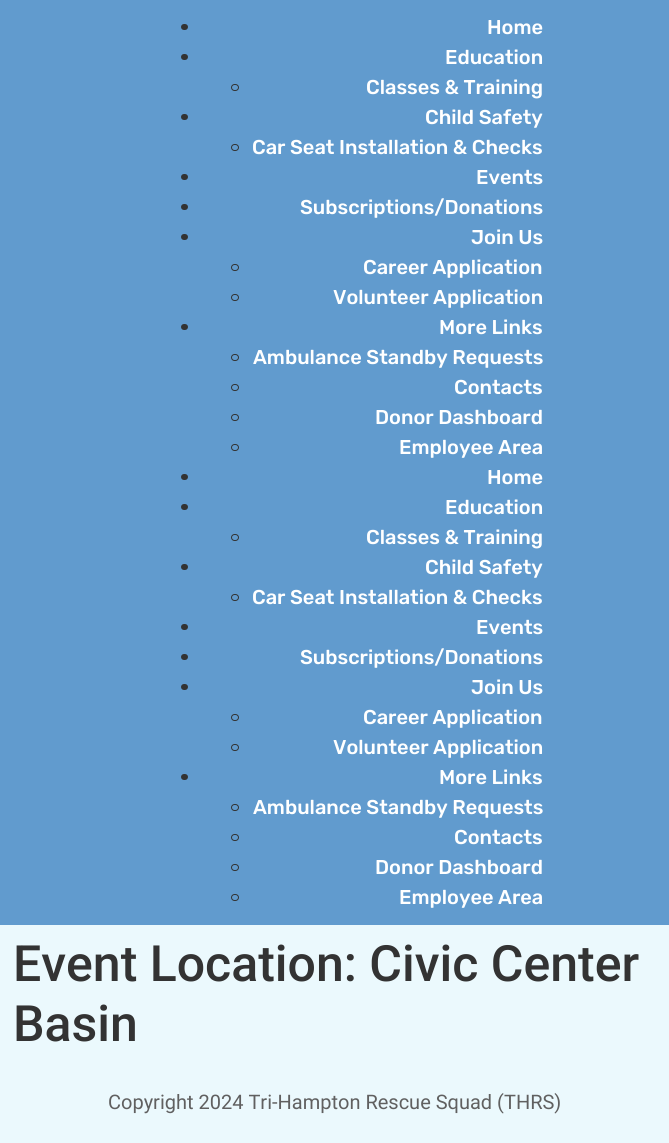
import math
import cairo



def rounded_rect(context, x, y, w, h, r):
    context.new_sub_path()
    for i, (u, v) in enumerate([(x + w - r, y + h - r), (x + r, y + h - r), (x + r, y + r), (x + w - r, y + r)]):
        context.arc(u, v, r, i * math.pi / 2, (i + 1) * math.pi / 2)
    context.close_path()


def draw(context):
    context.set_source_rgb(235 / 255, 249 / 255, 253 / 255)
    context.paint()
    context.set_source_rgb(97 / 255, 155 / 255, 206 / 255)
    context.rectangle(0, 0, 669, 925)
    context.fill()
    context.set_source_rgb(51 / 255, 51 / 255, 51 / 255)
    rounded_rect(context, 181, 24, 7, 6, 3)
    context.fill()
    rounded_rect(context, 181, 54, 7, 6, 3)
    context.fill()
    rounded_rect(context, 231.5, 84.5, 7, 6, 3)
    context.set_line_width(1)
    context.stroke()
    rounded_rect(context, 181, 114, 7, 6, 3)
    context.fill()
    rounded_rect(context, 231.5, 144.5, 7, 6, 3)
    context.stroke()
    rounded_rect(context, 181, 174, 7, 6, 3)
    context.fill()
    rounded_rect(context, 181, 204, 7, 6, 3)
    context.fill()
    rounded_rect(context, 181, 234, 7, 6, 3)
    context.fill()
    rounded_rect(context, 231.5, 264.5, 7, 6, 3)
    context.stroke()
    rounded_rect(context, 231.5, 294.5, 7, 6, 3)
    context.stroke()
    rounded_rect(context, 181, 324, 7, 6, 3)
    context.fill()
    rounded_rect(context, 231.5, 354.5, 7, 6, 3)
    context.stroke()
    rounded_rect(context, 231.5, 384.5, 7, 6, 3)
    context.stroke()
    rounded_rect(context, 231.5, 414.5, 7, 6, 3)
    context.stroke()
    rounded_rect(context, 231.5, 444.5, 7, 6, 3)
    context.stroke()
    rounded_rect(context, 181, 474, 7, 6, 3)
    context.fill()
    rounded_rect(context, 181, 504, 7, 6, 3)
    context.fill()
    rounded_rect(context, 231.5, 534.5, 7, 6, 3)
    context.stroke()
    rounded_rect(context, 181, 564, 7, 6, 3)
    context.fill()
    rounded_rect(context, 231.5, 594.5, 7, 6, 3)
    context.stroke()
    rounded_rect(context, 181, 624, 7, 6, 3)
    context.fill()
    rounded_rect(context, 181, 654, 7, 6, 3)
    context.fill()
    rounded_rect(context, 181, 684, 7, 6, 3)
    context.fill()
    rounded_rect(context, 231.5, 714.5, 7, 6, 3)
    context.stroke()
    rounded_rect(context, 231.5, 744.5, 7, 6, 3)
    context.stroke()
    rounded_rect(context, 181, 774, 7, 6, 3)
    context.fill()
    rounded_rect(context, 231.5, 804.5, 7, 6, 3)
    context.stroke()
    rounded_rect(context, 231.5, 834.5, 7, 6, 3)
    context.stroke()
    rounded_rect(context, 231.5, 864.5, 7, 6, 3)
    context.stroke()
    rounded_rect(context, 231.5, 894.5, 7, 6, 3)
    context.stroke()
    context.select_font_face("Rubik Medium")
    context.set_font_size(20)
    context.set_source_rgb(1, 1, 1)
    context.move_to(487, 34)
    context.show_text("Home")
    context.move_to(445, 64)
    context.show_text("Education")
    context.move_to(366, 94)
    context.show_text("Classes & Training")
    context.move_to(425, 124)
    context.show_text("Child Safety")
    context.move_to(252, 154)
    context.show_text("Car Seat Installation & Checks")
    context.move_to(476, 184)
    context.show_text("Events")
    context.move_to(300, 214)
    context.show_text("Subscriptions/Donations")
    context.move_to(471, 244)
    context.show_text("Join Us")
    context.move_to(363, 274)
    context.show_text("Career Application")
    context.move_to(333, 304)
    context.show_text("Volunteer Application")
    context.move_to(439, 334)
    context.show_text("More Links")
    context.move_to(253, 364)
    context.show_text("Ambulance Standby Requests")
    context.move_to(454, 394)
    context.show_text("Contacts")
    context.move_to(375, 424)
    context.show_text("Donor Dashboard")
    context.move_to(399, 454)
    context.show_text("Employee Area")
    context.move_to(487, 484)
    context.show_text("Home")
    context.move_to(445, 514)
    context.show_text("Education")
    context.move_to(366, 544)
    context.show_text("Classes & Training")
    context.move_to(425, 574)
    context.show_text("Child Safety")
    context.move_to(252, 604)
    context.show_text("Car Seat Installation & Checks")
    context.move_to(476, 634)
    context.show_text("Events")
    context.move_to(300, 664)
    context.show_text("Subscriptions/Donations")
    context.move_to(471, 694)
    context.show_text("Join Us")
    context.move_to(363, 724)
    context.show_text("Career Application")
    context.move_to(333, 754)
    context.show_text("Volunteer Application")
    context.move_to(439, 784)
    context.show_text("More Links")
    context.move_to(253, 814)
    context.show_text("Ambulance Standby Requests")
    context.move_to(454, 844)
    context.show_text("Contacts")
    context.move_to(375, 874)
    context.show_text("Donor Dashboard")
    context.move_to(399, 904)
    context.show_text("Employee Area")
    context.select_font_face("Roboto Medium")
    context.set_font_size(50)
    context.set_source_rgb(51 / 255, 51 / 255, 51 / 255)
    context.move_to(13, 981)
    context.show_text("Event Location: Civic Center")
    context.move_to(13, 1041)
    context.show_text("Basin")
    context.select_font_face("Roboto")
    context.set_font_size(20)
    context.set_source_rgb(96 / 255, 96 / 255, 96 / 255)
    context.move_to(108, 1109)
    context.show_text("Copyright 2024 Tri-Hampton Rescue Squad (THRS)")


surface = cairo.ImageSurface(cairo.Format.RGB24, 669, 1143)
context = cairo.Context(surface)
options = cairo.FontOptions()
options.set_hint_metrics(cairo.HintMetrics.OFF)
options.set_hint_style(cairo.HintStyle.NONE)
context.set_font_options(options)
context.set_miter_limit(4)
draw(context)
surface.write_to_png("out.png")
